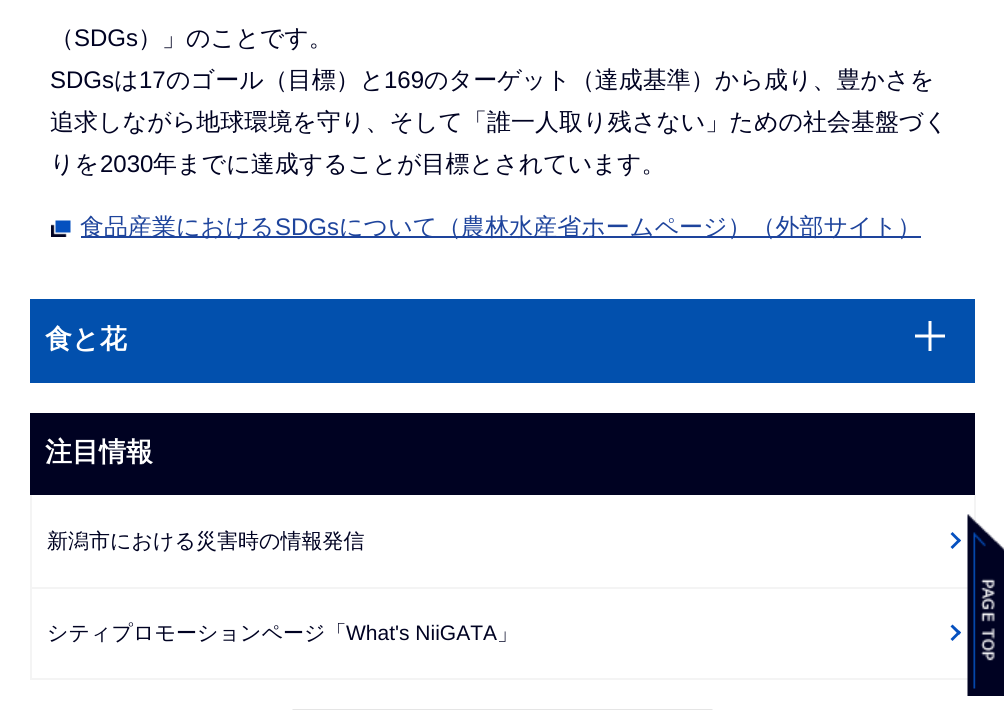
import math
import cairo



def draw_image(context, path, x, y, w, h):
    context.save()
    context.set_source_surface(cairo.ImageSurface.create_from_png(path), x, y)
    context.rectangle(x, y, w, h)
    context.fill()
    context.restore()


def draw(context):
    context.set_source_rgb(1, 1, 1)
    context.paint()
    draw_image(context, "images/1.png", 51, 220, 20, 17)
    context.set_source_rgb(30 / 255, 68 / 255, 156 / 255)
    context.rectangle(81, 236, 840, 2)
    context.fill()
    context.set_source_rgb(2 / 255, 80 / 255, 173 / 255)
    context.rectangle(30, 299, 945, 84)
    context.fill()
    draw_image(context, "images/2.png", 915, 321, 30, 30)
    context.set_source_rgb(0, 2 / 255, 34 / 255)
    context.rectangle(30, 413, 945, 82)
    context.fill()
    context.set_source_rgb(244 / 255, 244 / 255, 244 / 255)
    context.rectangle(974, 495, 2, 29)
    context.fill()
    context.rectangle(30, 678, 945, 2)
    context.fill()
    context.rectangle(30, 495, 2, 185)
    context.fill()
    context.rectangle(32, 587, 942, 2)
    context.fill()
    context.set_source_rgb(5 / 255, 80 / 255, 191 / 255)
    context.new_path()
    context.move_to(952.5, 532)
    context.line_to(961, 540.5)
    context.line_to(959, 542.5)
    context.line_to(950.5, 534)
    context.close_path()
    context.fill()
    context.new_path()
    context.move_to(959, 538.5)
    context.line_to(961, 540.5)
    context.line_to(952.5, 549)
    context.line_to(950.5, 547)
    context.close_path()
    context.fill()
    context.new_path()
    context.move_to(952.5, 624.5)
    context.line_to(961, 632.5)
    context.line_to(959, 635)
    context.line_to(950.5, 626.5)
    context.close_path()
    context.fill()
    context.new_path()
    context.move_to(959, 630.5)
    context.line_to(961, 632.5)
    context.line_to(952.5, 641)
    context.line_to(950.5, 639)
    context.close_path()
    context.fill()
    draw_image(context, "images/3.png", 292, 709, 421, 1)
    draw_image(context, "images/4.png", 967, 514, 37, 182)
    context.select_font_face("WenQuanYi Zen Hei Medium")
    context.set_font_size(24)
    context.set_source_rgb(0, 2 / 255, 34 / 255)
    context.move_to(50, 46)
    context.show_text("（")
    context.select_font_face("Liberation Sans")
    context.move_to(74, 46)
    context.show_text("SDGs")
    context.select_font_face("WenQuanYi Zen Hei Medium")
    context.move_to(138, 46)
    context.show_text("）」のことです。")
    context.select_font_face("Liberation Sans")
    context.move_to(50, 88)
    context.show_text("SDGs")
    context.select_font_face("WenQuanYi Zen Hei Medium")
    context.move_to(114, 88)
    context.show_text("は")
    context.select_font_face("Liberation Sans")
    context.move_to(139, 88)
    context.show_text("17")
    context.select_font_face("WenQuanYi Zen Hei Medium")
    context.move_to(166, 88)
    context.show_text("のゴール（目標）と")
    context.select_font_face("Liberation Sans")
    context.move_to(384, 88)
    context.show_text("169")
    context.select_font_face("WenQuanYi Zen Hei Medium")
    context.move_to(424, 88)
    context.show_text("のターゲット（達成基準）から成り、豊かさを")
    context.move_to(50, 130)
    context.show_text("追求しながら地球環境を守り、そして「誰一人取り残さない」ための社会基盤づく")
    context.move_to(50, 172)
    context.show_text("りを")
    context.select_font_face("Liberation Sans")
    context.move_to(100, 172)
    context.show_text("2030")
    context.select_font_face("WenQuanYi Zen Hei Medium")
    context.move_to(153, 172)
    context.show_text("年までに達成することが目標とされています。")
    context.set_source_rgb(30 / 255, 68 / 255, 156 / 255)
    context.move_to(80, 235)
    context.show_text("食品産業における")
    context.select_font_face("Liberation Sans")
    context.move_to(275, 235)
    context.show_text("SDGs")
    context.select_font_face("WenQuanYi Zen Hei Medium")
    context.move_to(339, 235)
    context.show_text("について（農林水産省ホームページ）（外部サイト）")
    context.select_font_face("WenQuanYi Zen Hei", cairo.FontSlant.NORMAL, cairo.FontWeight.BOLD)
    context.set_font_size(27)
    context.set_source_rgb(1, 1, 1)
    context.move_to(45, 348)
    context.show_text("食と花")
    context.move_to(45, 461)
    context.show_text("注目情報")
    context.select_font_face("WenQuanYi Zen Hei Medium")
    context.set_font_size(21)
    context.set_source_rgb(0, 2 / 255, 34 / 255)
    context.move_to(47, 548)
    context.show_text("新潟市における災害時の情報発信")
    context.move_to(47, 640)
    context.show_text("シティプロモーションページ「")
    context.select_font_face("Liberation Sans")
    context.move_to(346, 640)
    context.show_text("What's NiiGATA")
    context.select_font_face("WenQuanYi Zen Hei Medium")
    context.move_to(497, 640)
    context.show_text("」")


surface = cairo.ImageSurface(cairo.Format.RGB24, 1004, 710)
context = cairo.Context(surface)
options = cairo.FontOptions()
options.set_hint_metrics(cairo.HintMetrics.OFF)
options.set_hint_style(cairo.HintStyle.NONE)
context.set_font_options(options)
context.set_miter_limit(4)
draw(context)
surface.write_to_png("out.png")
